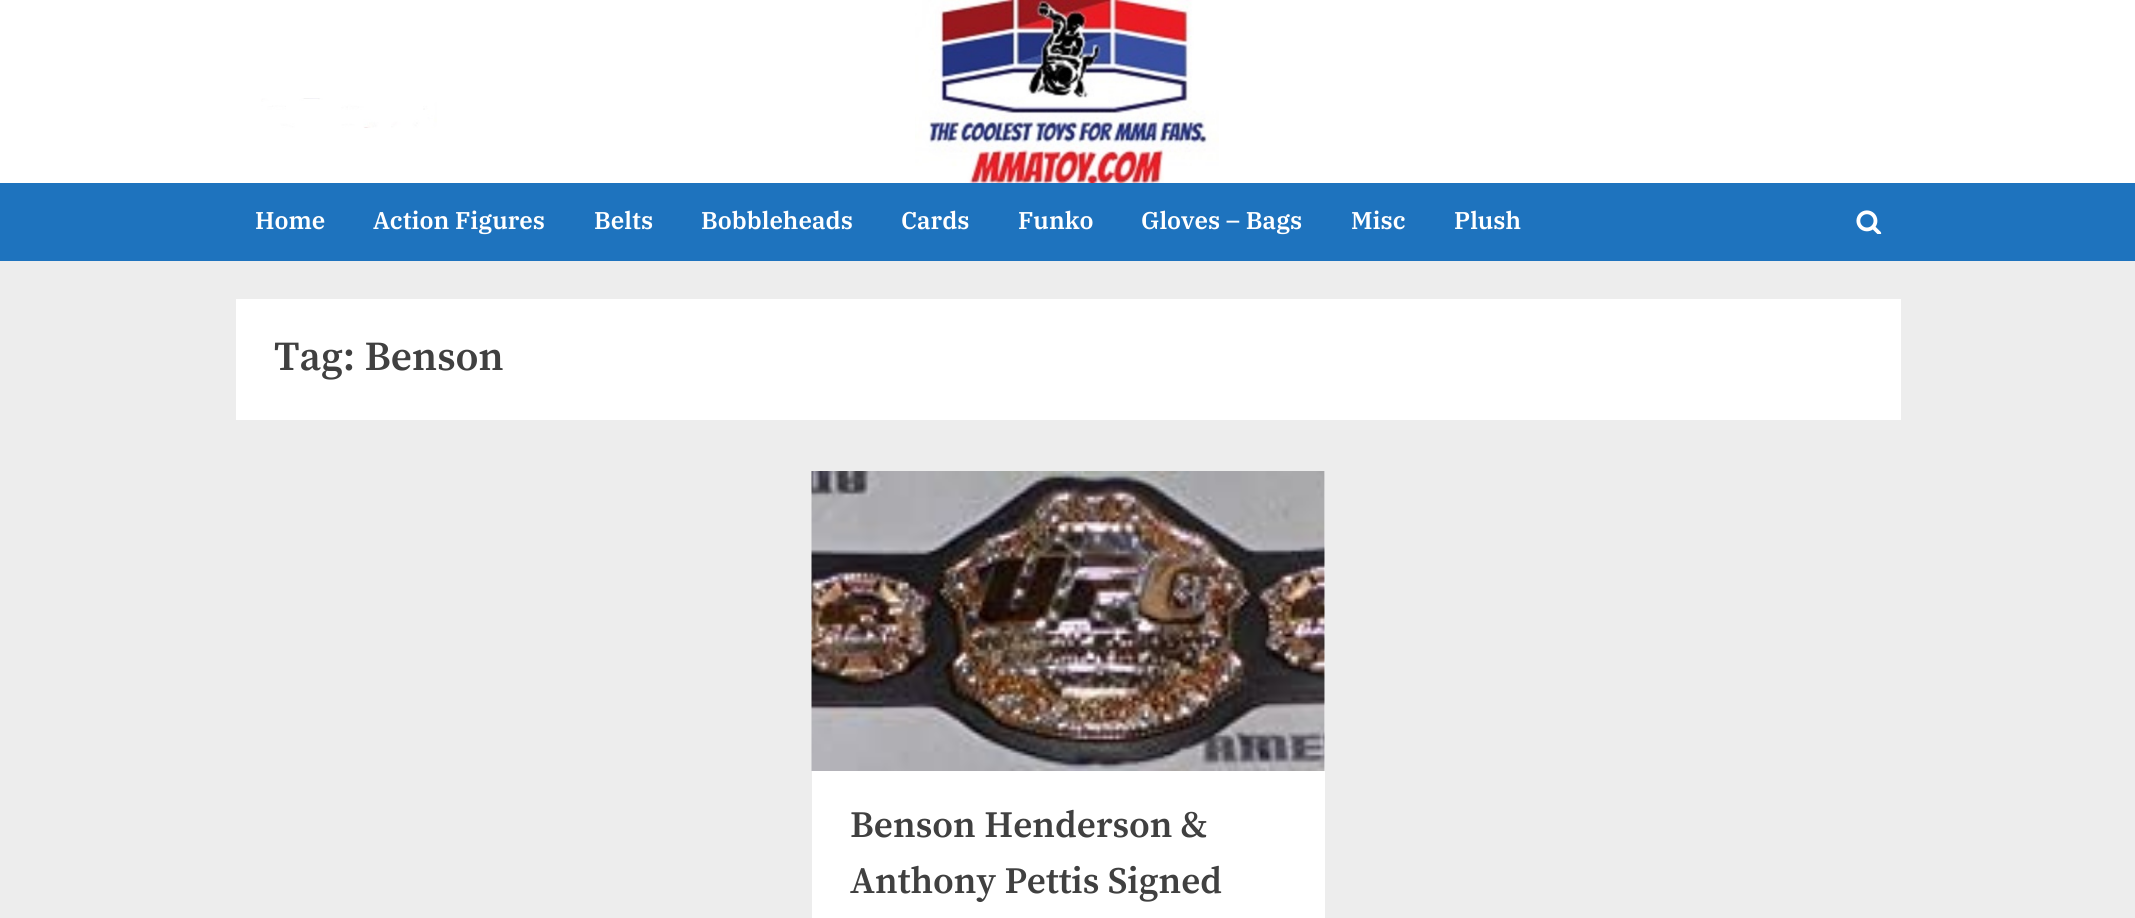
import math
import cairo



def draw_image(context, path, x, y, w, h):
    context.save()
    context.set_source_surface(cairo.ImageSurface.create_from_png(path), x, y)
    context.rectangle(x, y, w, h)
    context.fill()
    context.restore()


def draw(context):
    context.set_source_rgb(237 / 255, 237 / 255, 237 / 255)
    context.paint()
    context.set_source_rgb(1, 1, 1)
    context.rectangle(0, 0, 2135, 183)
    context.fill()
    draw_image(context, "images/1.png", 915, 0, 304, 183)
    draw_image(context, "images/2.png", 261, 98, 176, 30)
    context.set_source_rgb(30 / 255, 115 / 255, 190 / 255)
    context.rectangle(0, 183, 2135, 78)
    context.fill()
    draw_image(context, "images/3.png", 1856, 210, 26, 24)
    context.set_source_rgb(1, 1, 1)
    context.rectangle(236, 299, 1665, 121)
    context.fill()
    context.rectangle(812, 471, 513, 447)
    context.fill()
    draw_image(context, "images/4.png", 811, 471, 514, 300)
    context.select_font_face("IBM Plex Serif SemiBold")
    context.set_font_size(24.25)
    context.move_to(255, 229)
    context.show_text("Home")
    context.move_to(373, 229)
    context.show_text("Action Figures")
    context.move_to(594, 229)
    context.show_text("Belts")
    context.move_to(701, 229)
    context.show_text("Bobbleheads")
    context.move_to(901, 229)
    context.show_text("Cards")
    context.move_to(1018, 229)
    context.show_text("Funko")
    context.move_to(1141, 229)
    context.show_text("Gloves – Bags")
    context.move_to(1351, 229)
    context.show_text("Misc")
    context.move_to(1454, 229)
    context.show_text("Plush")
    context.select_font_face("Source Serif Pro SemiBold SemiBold")
    context.set_font_size(41.25)
    context.set_source_rgb(64 / 255, 64 / 255, 64 / 255)
    context.move_to(274, 370)
    context.show_text("Tag: Benson")
    context.set_font_size(37.25)
    context.move_to(850, 837)
    context.show_text("Benson Henderson &")
    context.move_to(850, 893)
    context.show_text("Anthony Pettis Signed")


surface = cairo.ImageSurface(cairo.Format.RGB24, 2135, 918)
context = cairo.Context(surface)
options = cairo.FontOptions()
options.set_hint_metrics(cairo.HintMetrics.OFF)
options.set_hint_style(cairo.HintStyle.NONE)
context.set_font_options(options)
context.set_miter_limit(4)
draw(context)
surface.write_to_png("out.png")
